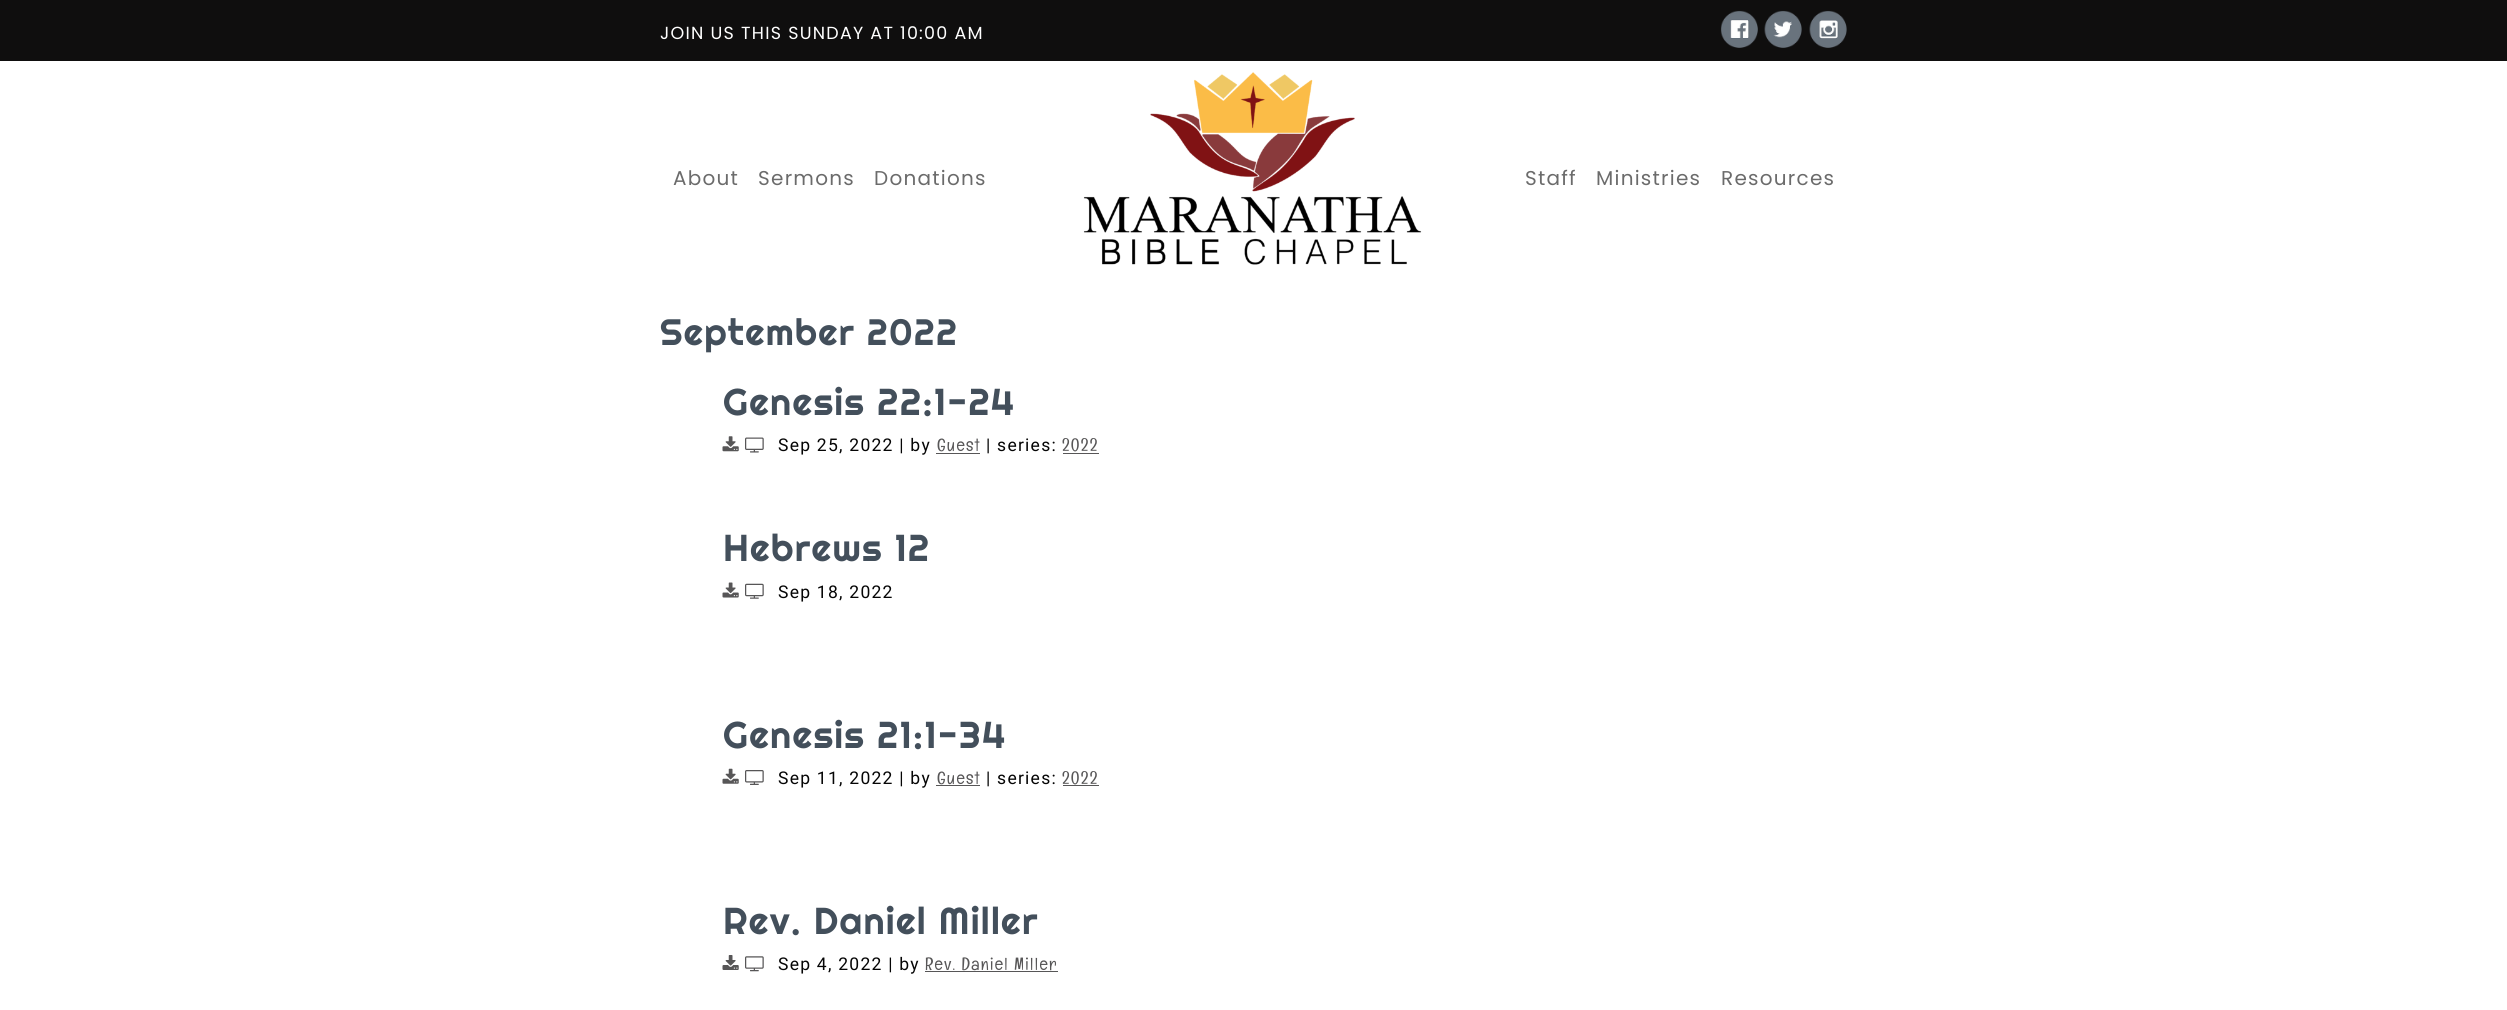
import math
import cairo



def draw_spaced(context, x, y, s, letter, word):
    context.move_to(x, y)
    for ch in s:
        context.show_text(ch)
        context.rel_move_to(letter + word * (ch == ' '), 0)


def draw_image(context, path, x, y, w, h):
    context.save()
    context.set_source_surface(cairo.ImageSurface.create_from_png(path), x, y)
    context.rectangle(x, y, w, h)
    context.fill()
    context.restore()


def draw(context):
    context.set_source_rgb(15 / 255, 14 / 255, 14 / 255)
    context.paint()
    draw_image(context, "images/1.png", 1720, 10, 38, 38)
    draw_image(context, "images/2.png", 1764, 10, 38, 38)
    draw_image(context, "images/3.png", 1809, 10, 38, 38)
    context.set_source_rgb(1, 1, 1)
    context.rectangle(0, 61, 2507, 949)
    context.fill()
    draw_image(context, "images/4.png", 1083, 72, 339, 193)
    draw_image(context, "images/5.png", 722, 436, 17, 16)
    draw_image(context, "images/6.png", 745, 437, 19, 16)
    context.set_source_rgb(87 / 255, 86 / 255, 87 / 255)
    context.rectangle(936, 453, 44, 1)
    context.fill()
    context.rectangle(1063, 453, 36, 1)
    context.fill()
    draw_image(context, "images/7.png", 722, 582, 17, 16)
    draw_image(context, "images/8.png", 745, 583, 19, 16)
    draw_image(context, "images/9.png", 722, 768, 17, 16)
    draw_image(context, "images/10.png", 745, 770, 19, 15)
    context.rectangle(936, 785, 44, 1)
    context.fill()
    context.rectangle(1063, 785, 36, 1)
    context.fill()
    draw_image(context, "images/11.png", 722, 955, 17, 15)
    draw_image(context, "images/12.png", 745, 956, 19, 16)
    context.rectangle(925, 971, 133, 1)
    context.fill()
    context.select_font_face("Poppins")
    context.set_font_size(17.5)
    context.set_source_rgb(1, 1, 1)
    draw_spaced(context, 660, 39, "JOIN US THIS SUNDAY AT 10:00 AM", 1.25, 0)
    context.set_font_size(20)
    context.set_source_rgb(107 / 255, 107 / 255, 107 / 255)
    draw_spaced(context, 673, 185, "About", 1.25, 0)
    draw_spaced(context, 758, 185, "Sermons", 1.25, 0)
    draw_spaced(context, 874, 185, "Donations", 1.25, 0)
    draw_spaced(context, 1525, 185, "Staff", 1.25, 0)
    draw_spaced(context, 1596, 185, "Ministries", 1.25, 0)
    draw_spaced(context, 1721, 185, "Resources", 1.25, 0)
    context.select_font_face("Righteous")
    context.set_font_size(36.75)
    context.set_source_rgb(67 / 255, 79 / 255, 91 / 255)
    draw_spaced(context, 660, 345, "September 2022", 1.25, 0)
    context.set_font_size(37.5)
    draw_spaced(context, 723, 415, "Genesis 22:1-24", 1.25, 0)
    context.select_font_face("Roboto")
    context.set_font_size(17.5)
    context.set_source_rgb(5 / 255, 5 / 255, 5 / 255)
    draw_spaced(context, 778, 451, "Sep 25, 2022 | by", 1.25, 0)
    context.select_font_face("Englebert")
    context.set_source_rgb(87 / 255, 86 / 255, 87 / 255)
    draw_spaced(context, 937, 451, "Guest", 1.25, 0)
    context.select_font_face("Roboto")
    context.set_source_rgb(5 / 255, 5 / 255, 5 / 255)
    draw_spaced(context, 986, 451, "| series:", 1.25, 0)
    context.select_font_face("Englebert")
    context.set_source_rgb(87 / 255, 86 / 255, 87 / 255)
    draw_spaced(context, 1062, 451, "2022", 1.25, 0)
    context.select_font_face("Righteous")
    context.set_font_size(37.5)
    context.set_source_rgb(67 / 255, 79 / 255, 91 / 255)
    draw_spaced(context, 723, 561, "Hebrews 12", 1.25, 0)
    context.select_font_face("Roboto")
    context.set_font_size(17.5)
    context.set_source_rgb(5 / 255, 5 / 255, 5 / 255)
    draw_spaced(context, 778, 598, "Sep 18, 2022", 1.25, 0)
    context.select_font_face("Righteous")
    context.set_font_size(37.5)
    context.set_source_rgb(67 / 255, 79 / 255, 91 / 255)
    draw_spaced(context, 723, 748, "Genesis 21:1-34", 1.25, 0)
    context.select_font_face("Roboto")
    context.set_font_size(17.5)
    context.set_source_rgb(5 / 255, 5 / 255, 5 / 255)
    draw_spaced(context, 778, 784, "Sep 11, 2022 | by", 1.25, 0)
    context.select_font_face("Englebert")
    context.set_source_rgb(87 / 255, 86 / 255, 87 / 255)
    draw_spaced(context, 937, 784, "Guest", 1.25, 0)
    context.select_font_face("Roboto")
    context.set_source_rgb(5 / 255, 5 / 255, 5 / 255)
    draw_spaced(context, 986, 784, "| series:", 1.25, 0)
    context.select_font_face("Englebert")
    context.set_source_rgb(87 / 255, 86 / 255, 87 / 255)
    draw_spaced(context, 1062, 784, "2022", 1.25, 0)
    context.select_font_face("Righteous")
    context.set_font_size(37.5)
    context.set_source_rgb(67 / 255, 79 / 255, 91 / 255)
    draw_spaced(context, 723, 934, "Rev. Daniel Miller", 1.25, 0)
    context.select_font_face("Roboto")
    context.set_font_size(17.5)
    context.set_source_rgb(5 / 255, 5 / 255, 5 / 255)
    draw_spaced(context, 778, 970, "Sep 4, 2022 | by", 1.25, 0)
    context.select_font_face("Englebert")
    context.set_source_rgb(87 / 255, 86 / 255, 87 / 255)
    draw_spaced(context, 925, 970, "Rev. Daniel Miller", 1.25, 0)


surface = cairo.ImageSurface(cairo.Format.RGB24, 2507, 1010)
context = cairo.Context(surface)
options = cairo.FontOptions()
options.set_hint_metrics(cairo.HintMetrics.OFF)
options.set_hint_style(cairo.HintStyle.NONE)
context.set_font_options(options)
context.set_miter_limit(4)
draw(context)
surface.write_to_png("out.png")
